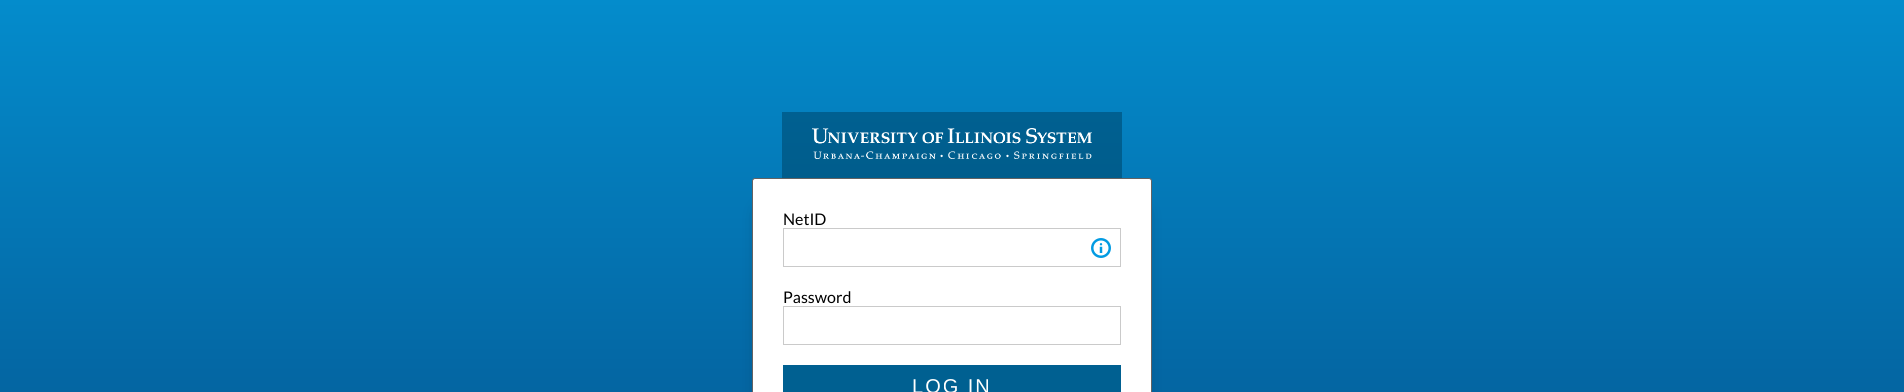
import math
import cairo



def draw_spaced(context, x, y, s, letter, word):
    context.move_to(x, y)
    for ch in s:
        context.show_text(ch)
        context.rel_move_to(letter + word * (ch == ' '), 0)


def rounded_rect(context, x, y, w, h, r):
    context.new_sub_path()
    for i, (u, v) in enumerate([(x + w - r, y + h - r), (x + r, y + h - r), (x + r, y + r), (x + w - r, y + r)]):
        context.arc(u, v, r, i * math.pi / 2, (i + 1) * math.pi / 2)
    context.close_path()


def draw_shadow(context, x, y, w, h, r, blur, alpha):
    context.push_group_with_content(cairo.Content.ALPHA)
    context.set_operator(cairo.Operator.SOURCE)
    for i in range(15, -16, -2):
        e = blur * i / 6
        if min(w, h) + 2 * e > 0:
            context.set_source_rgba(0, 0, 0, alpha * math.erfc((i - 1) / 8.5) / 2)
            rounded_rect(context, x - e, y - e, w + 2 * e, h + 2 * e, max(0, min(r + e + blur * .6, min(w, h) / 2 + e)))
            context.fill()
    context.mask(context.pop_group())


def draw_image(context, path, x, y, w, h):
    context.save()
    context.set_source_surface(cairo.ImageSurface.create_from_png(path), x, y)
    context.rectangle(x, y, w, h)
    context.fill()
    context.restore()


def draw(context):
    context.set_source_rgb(1, 1, 1)
    context.paint()
    gradient = cairo.LinearGradient(952, 0, 952, 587)
    gradient.add_color_stop_rgba(0, 4 / 255, 140 / 255, 204 / 255, 1)
    gradient.add_color_stop_rgba(1, 4 / 255, 82 / 255, 141 / 255, 1)
    context.set_source(gradient)
    context.rectangle(0, 0, 1904, 392)
    context.fill()
    gradient = cairo.LinearGradient(952, 112, 952, 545)
    gradient.add_color_stop_rgba(0, 0, 96 / 255, 145 / 255, 1)
    gradient.add_color_stop_rgba(1, 0, 75 / 255, 113 / 255, 1)
    context.set_source(gradient)
    context.rectangle(782, 112, 340, 66)
    context.fill()
    draw_image(context, "images/1.png", 812, 128, 280, 31)
    context.set_source_rgb(0, 0, 0)
    draw_shadow(context, 767, 213, 370, 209, 0, 10, 0.85)
    context.set_source_rgb(1, 1, 1)
    rounded_rect(context, 752.5, 178.5, 399, 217, 2.5)
    context.fill_preserve()
    context.set_source_rgb(100 / 255, 98 / 255, 98 / 255)
    context.set_line_width(1)
    context.stroke()
    context.rectangle(783.5, 228.5, 337, 38)
    context.set_source_rgb(202 / 255, 202 / 255, 202 / 255)
    context.stroke()
    draw_image(context, "images/2.png", 1091, 238, 20, 20)
    context.rectangle(783.5, 306.5, 337, 38)
    context.stroke()
    context.set_source_rgb(0, 96 / 255, 145 / 255)
    context.rectangle(783, 365, 338, 27)
    context.fill()
    context.select_font_face("Lato")
    context.set_font_size(16)
    context.set_source_rgb(0, 0, 0)
    context.move_to(783, 225)
    context.show_text("NetID")
    context.move_to(783, 303)
    context.show_text("Password")
    context.select_font_face("Liberation Sans")
    context.set_font_size(20)
    context.set_source_rgb(1, 1, 1)
    draw_spaced(context, 912, 393, "LOG IN", 2, 0)


surface = cairo.ImageSurface(cairo.Format.RGB24, 1904, 392)
context = cairo.Context(surface)
options = cairo.FontOptions()
options.set_hint_metrics(cairo.HintMetrics.OFF)
options.set_hint_style(cairo.HintStyle.NONE)
context.set_font_options(options)
context.set_miter_limit(4)
draw(context)
surface.write_to_png("out.png")
